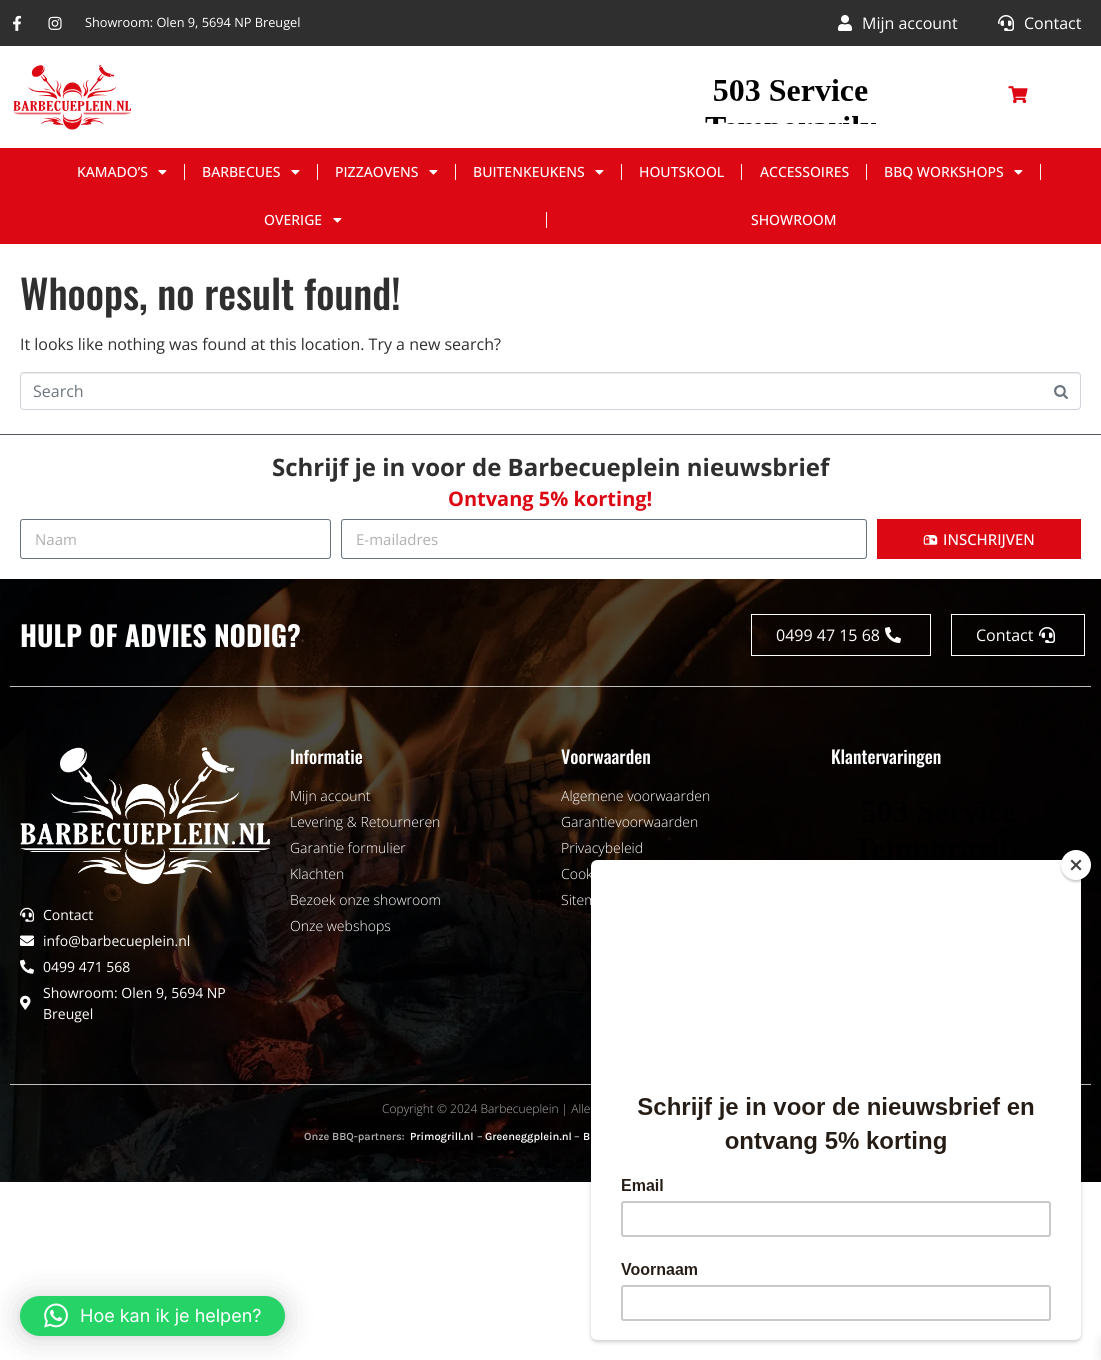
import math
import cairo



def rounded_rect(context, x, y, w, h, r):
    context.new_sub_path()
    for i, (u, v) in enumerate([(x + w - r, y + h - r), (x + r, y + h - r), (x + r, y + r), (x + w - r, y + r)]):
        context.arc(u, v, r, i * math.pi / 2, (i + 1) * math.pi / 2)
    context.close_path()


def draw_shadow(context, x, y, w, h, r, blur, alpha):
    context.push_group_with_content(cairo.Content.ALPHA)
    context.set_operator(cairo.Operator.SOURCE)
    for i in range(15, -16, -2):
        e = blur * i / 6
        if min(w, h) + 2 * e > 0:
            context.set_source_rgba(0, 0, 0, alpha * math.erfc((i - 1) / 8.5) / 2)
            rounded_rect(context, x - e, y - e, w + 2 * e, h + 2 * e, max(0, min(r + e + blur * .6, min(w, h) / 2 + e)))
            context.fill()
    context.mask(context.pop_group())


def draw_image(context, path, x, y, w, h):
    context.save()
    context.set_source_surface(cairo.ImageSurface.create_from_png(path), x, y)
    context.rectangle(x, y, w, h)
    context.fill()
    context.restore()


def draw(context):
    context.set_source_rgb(1, 1, 1)
    context.paint()
    context.set_source_rgb(47 / 255, 47 / 255, 47 / 255)
    context.rectangle(0, 0, 1101, 46)
    context.fill()
    draw_image(context, "images/1.png", 13, 15, 8, 16)
    draw_image(context, "images/2.png", 48, 16, 14, 14)
    draw_image(context, "images/3.png", 838, 15, 14, 16)
    draw_image(context, "images/4.png", 998, 15, 16, 16)
    draw_image(context, "images/5.png", 13, 65, 118, 65)
    draw_image(context, "images/6.png", 705, 79, 171, 45)
    draw_image(context, "images/7.png", 1008, 86, 20, 18)
    context.set_source_rgb(220 / 255, 8 / 255, 20 / 255)
    context.rectangle(0, 148, 1101, 96)
    context.fill()
    draw_image(context, "images/8.png", 158, 170, 9, 5)
    context.set_source_rgb(245 / 255, 242 / 255, 240 / 255)
    context.rectangle(184, 164, 1, 16)
    context.fill()
    draw_image(context, "images/8.png", 291, 170, 9, 5)
    context.rectangle(317, 164, 1, 16)
    context.fill()
    draw_image(context, "images/8.png", 429, 170, 9, 5)
    context.rectangle(455, 164, 1, 16)
    context.fill()
    draw_image(context, "images/8.png", 595, 170, 9, 5)
    context.rectangle(621, 164, 1, 16)
    context.fill()
    context.rectangle(741, 164, 1, 16)
    context.fill()
    context.rectangle(866, 164, 1, 16)
    context.fill()
    draw_image(context, "images/8.png", 1014, 170, 9, 5)
    context.rectangle(1040, 164, 1, 16)
    context.fill()
    draw_image(context, "images/8.png", 333, 218, 9, 5)
    context.rectangle(546, 212, 1, 16)
    context.fill()
    context.set_source_rgb(236 / 255, 236 / 255, 236 / 255)
    context.new_path()
    context.move_to(24, 374)
    context.line_to(1077, 374)
    context.curve_to(1079, 374, 1080, 375, 1080, 377)
    context.curve_to(1080, 375, 1079, 373, 1077, 373)
    context.line_to(24, 373)
    context.curve_to(22, 373, 21, 375, 21, 377)
    context.curve_to(21, 375, 22, 374, 24, 374)
    context.close_path()
    context.fill()
    rounded_rect(context, 20.5, 372.5, 1060, 37, 3.5)
    context.set_source_rgb(206 / 255, 212 / 255, 218 / 255)
    context.set_line_width(1)
    context.stroke()
    draw_image(context, "images/9.png", 1054, 385, 14, 15)
    context.set_source_rgb(84 / 255, 89 / 255, 95 / 255)
    context.rectangle(0, 434, 1101, 1)
    context.fill()
    rounded_rect(context, 20.5, 519.5, 310, 39, 2.5)
    context.set_source_rgb(105 / 255, 114 / 255, 125 / 255)
    context.stroke()
    rounded_rect(context, 341.5, 519.5, 525, 39, 2.5)
    context.stroke()
    context.set_source_rgb(220 / 255, 8 / 255, 20 / 255)
    context.rectangle(877, 519, 204, 40)
    context.fill()
    draw_image(context, "images/10.png", 923, 535, 15, 10)
    draw_image(context, "images/11.png", 0, 579, 1101, 603)
    context.set_source_rgba(1, 1, 1, 0.74)
    context.rectangle(10, 686, 1081, 1)
    context.fill()
    context.rectangle(751.5, 614.5, 179, 41)
    context.set_source_rgb(1, 1, 1)
    context.stroke()
    draw_image(context, "images/12.png", 885, 627, 16, 16)
    context.rectangle(951.5, 614.5, 133, 41)
    context.stroke()
    draw_image(context, "images/13.png", 1039, 627, 16, 16)
    draw_image(context, "images/14.png", 853, 801, 171, 59)
    draw_image(context, "images/15.png", 20, 747, 250, 137)
    draw_image(context, "images/16.png", 20, 907, 14, 15)
    draw_image(context, "images/17.png", 20, 935, 14, 11)
    draw_image(context, "images/18.png", 20, 959, 14, 15)
    draw_image(context, "images/19.png", 20, 995, 11, 15)
    context.set_source_rgba(1, 1, 1, 0.74)
    context.rectangle(10, 1084, 1081, 1)
    context.fill()
    context.set_source_rgb(0, 0, 0)
    draw_shadow(context, 20, 1298, 265, 40, 20, 16, 0.16)
    draw_shadow(context, 20, 1297, 265, 40, 20, 3, 0.06)
    context.set_source_rgb(37 / 255, 211 / 255, 102 / 255)
    rounded_rect(context, 20, 1296, 265, 40, 20)
    context.fill()
    draw_image(context, "images/20.png", 44, 1303, 24, 25)
    context.set_source_rgb(0, 0, 0)
    draw_shadow(context, 591, 862, 490, 480, 6, 2, 0.2)
    draw_shadow(context, 1101, 1339, 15, 20, 0, 5, 0.1)
    context.select_font_face("Open Sans")
    context.set_font_size(12.75)
    context.set_source_rgb(1, 1, 1)
    context.move_to(85, 27)
    context.show_text("Showroom: Olen 9, 5694 NP Breugel")
    context.set_font_size(16)
    context.move_to(862, 29)
    context.show_text("Mijn account")
    context.move_to(1024, 29)
    context.show_text("Contact")
    context.select_font_face("Open Sans Medium")
    context.set_font_size(14)
    context.move_to(77, 177)
    context.show_text("KAMADO’S")
    context.move_to(202, 177)
    context.show_text("BARBECUES")
    context.move_to(335, 177)
    context.show_text("PIZZAOVENS")
    context.move_to(473, 177)
    context.show_text("BUITENKEUKENS")
    context.move_to(639, 177)
    context.show_text("HOUTSKOOL")
    context.move_to(760, 177)
    context.show_text("ACCESSOIRES")
    context.move_to(884, 177)
    context.show_text("BBQ WORKSHOPS")
    context.move_to(264, 225)
    context.show_text("OVERIGE")
    context.move_to(751, 225)
    context.show_text("SHOWROOM")
    context.select_font_face("Oswald Medium")
    context.set_font_size(40)
    context.set_source_rgb(47 / 255, 47 / 255, 47 / 255)
    context.move_to(20, 310)
    context.show_text("Whoops, no result found!")
    context.select_font_face("Open Sans")
    context.set_font_size(16)
    context.move_to(20, 350)
    context.show_text("It looks like nothing was found at this location. Try a new search?")
    context.set_source_rgb(108 / 255, 117 / 255, 125 / 255)
    context.move_to(33, 397)
    context.show_text("Search")
    context.select_font_face("Open Sans", cairo.FontSlant.NORMAL, cairo.FontWeight.BOLD)
    context.set_font_size(24)
    context.set_source_rgb(47 / 255, 47 / 255, 47 / 255)
    context.move_to(272, 476)
    context.show_text("Schrijf je in voor de Barbecueplein nieuwsbrief")
    context.set_font_size(20)
    context.set_source_rgb(220 / 255, 8 / 255, 20 / 255)
    context.move_to(448, 506)
    context.show_text("Ontvang 5% korting!")
    context.select_font_face("Open Sans")
    context.set_font_size(15)
    context.set_source_rgb(175 / 255, 175 / 255, 175 / 255)
    context.move_to(35, 545)
    context.show_text("Naam")
    context.move_to(356, 545)
    context.show_text("E-mailadres")
    context.select_font_face("Open Sans Medium")
    context.set_source_rgb(1, 1, 1)
    context.move_to(943, 545)
    context.show_text("INSCHRIJVEN")
    context.select_font_face("Oswald", cairo.FontSlant.NORMAL, cairo.FontWeight.BOLD)
    context.set_font_size(28)
    context.move_to(20, 647)
    context.show_text("HULP OF ADVIES NODIG?")
    context.select_font_face("Open Sans")
    context.set_font_size(16)
    context.move_to(776, 641)
    context.show_text("0499 47 15 68")
    context.move_to(976, 641)
    context.show_text("Contact")
    context.select_font_face("Oswald Medium")
    context.set_font_size(18)
    context.move_to(290, 764)
    context.show_text("Informatie")
    context.select_font_face("Open Sans Light")
    context.set_font_size(14)
    context.move_to(290, 801)
    context.show_text("Mijn account")
    context.move_to(290, 827)
    context.show_text("Levering & Retourneren")
    context.move_to(290, 853)
    context.show_text("Garantie formulier")
    context.move_to(290, 879)
    context.show_text("Klachten")
    context.move_to(290, 905)
    context.show_text("Bezoek onze showroom")
    context.move_to(290, 931)
    context.show_text("Onze webshops")
    context.select_font_face("Oswald Medium")
    context.set_font_size(18)
    context.move_to(561, 764)
    context.show_text("Voorwaarden")
    context.select_font_face("Open Sans Light")
    context.set_font_size(14)
    context.move_to(561, 801)
    context.show_text("Algemene voorwaarden")
    context.move_to(561, 827)
    context.show_text("Garantievoorwaarden")
    context.move_to(561, 853)
    context.show_text("Privacybeleid")
    context.move_to(561, 879)
    context.show_text("Cook")
    context.move_to(561, 905)
    context.show_text("Sitem")
    context.select_font_face("Oswald Medium")
    context.set_font_size(18)
    context.move_to(831, 764)
    context.show_text("Klantervaringen")
    context.select_font_face("Open Sans")
    context.set_font_size(14)
    context.move_to(43, 920)
    context.show_text("Contact")
    context.move_to(43, 946)
    context.show_text("info@barbecueplein.nl")
    context.move_to(43, 972)
    context.show_text("0499 471 568")
    context.move_to(43, 998)
    context.show_text("Showroom: Olen 9, 5694 NP")
    context.move_to(43, 1019)
    context.show_text("Breugel")
    context.select_font_face("Open Sans Light")
    context.set_font_size(12)
    context.set_source_rgb(175 / 255, 175 / 255, 175 / 255)
    context.move_to(382, 1113)
    context.show_text("Copyright © 2024 Barbecueplein | Alle")
    context.select_font_face("Karla SemiBold")
    context.set_font_size(11)
    context.move_to(304, 1140)
    context.show_text("Onze BBQ-partners:")
    context.set_source_rgb(1, 1, 1)
    context.move_to(410, 1140)
    context.show_text("Primogrill.nl")
    context.set_source_rgb(175 / 255, 175 / 255, 175 / 255)
    context.move_to(477, 1140)
    context.show_text("–")
    context.set_source_rgb(1, 1, 1)
    context.move_to(485, 1140)
    context.show_text("Greeneggplein.nl")
    context.set_source_rgb(175 / 255, 175 / 255, 175 / 255)
    context.move_to(574, 1140)
    context.show_text("–")
    context.set_source_rgb(1, 1, 1)
    context.move_to(583, 1140)
    context.show_text("B")
    context.select_font_face("Inter")
    context.set_font_size(18)
    context.move_to(80, 1322)
    context.show_text("Hoe kan ik je helpen?")
    draw_image(context, "images/21.png", 591, 860, 490, 480)
    context.set_source_rgb(0, 0, 0)
    draw_shadow(context, 1061, 852, 30, 30, 15, 1, 0.2)
    context.set_source_rgb(1, 1, 1)
    context.arc(1076, 865, 15, 0, 2 * math.pi)
    context.fill()
    context.set_source_rgb(65 / 255, 65 / 255, 65 / 255)
    context.new_path()
    context.move_to(1080, 859.5)
    context.line_to(1081.5, 861)
    context.line_to(1072, 870.5)
    context.line_to(1070.5, 869)
    context.close_path()
    context.fill()
    context.new_path()
    context.move_to(1070.5, 861)
    context.line_to(1072, 859.5)
    context.line_to(1081.5, 869)
    context.line_to(1080, 870.5)
    context.close_path()
    context.fill()


surface = cairo.ImageSurface(cairo.Format.RGB24, 1101, 1360)
context = cairo.Context(surface)
options = cairo.FontOptions()
options.set_hint_metrics(cairo.HintMetrics.OFF)
options.set_hint_style(cairo.HintStyle.NONE)
context.set_font_options(options)
context.set_miter_limit(4)
draw(context)
surface.write_to_png("out.png")
